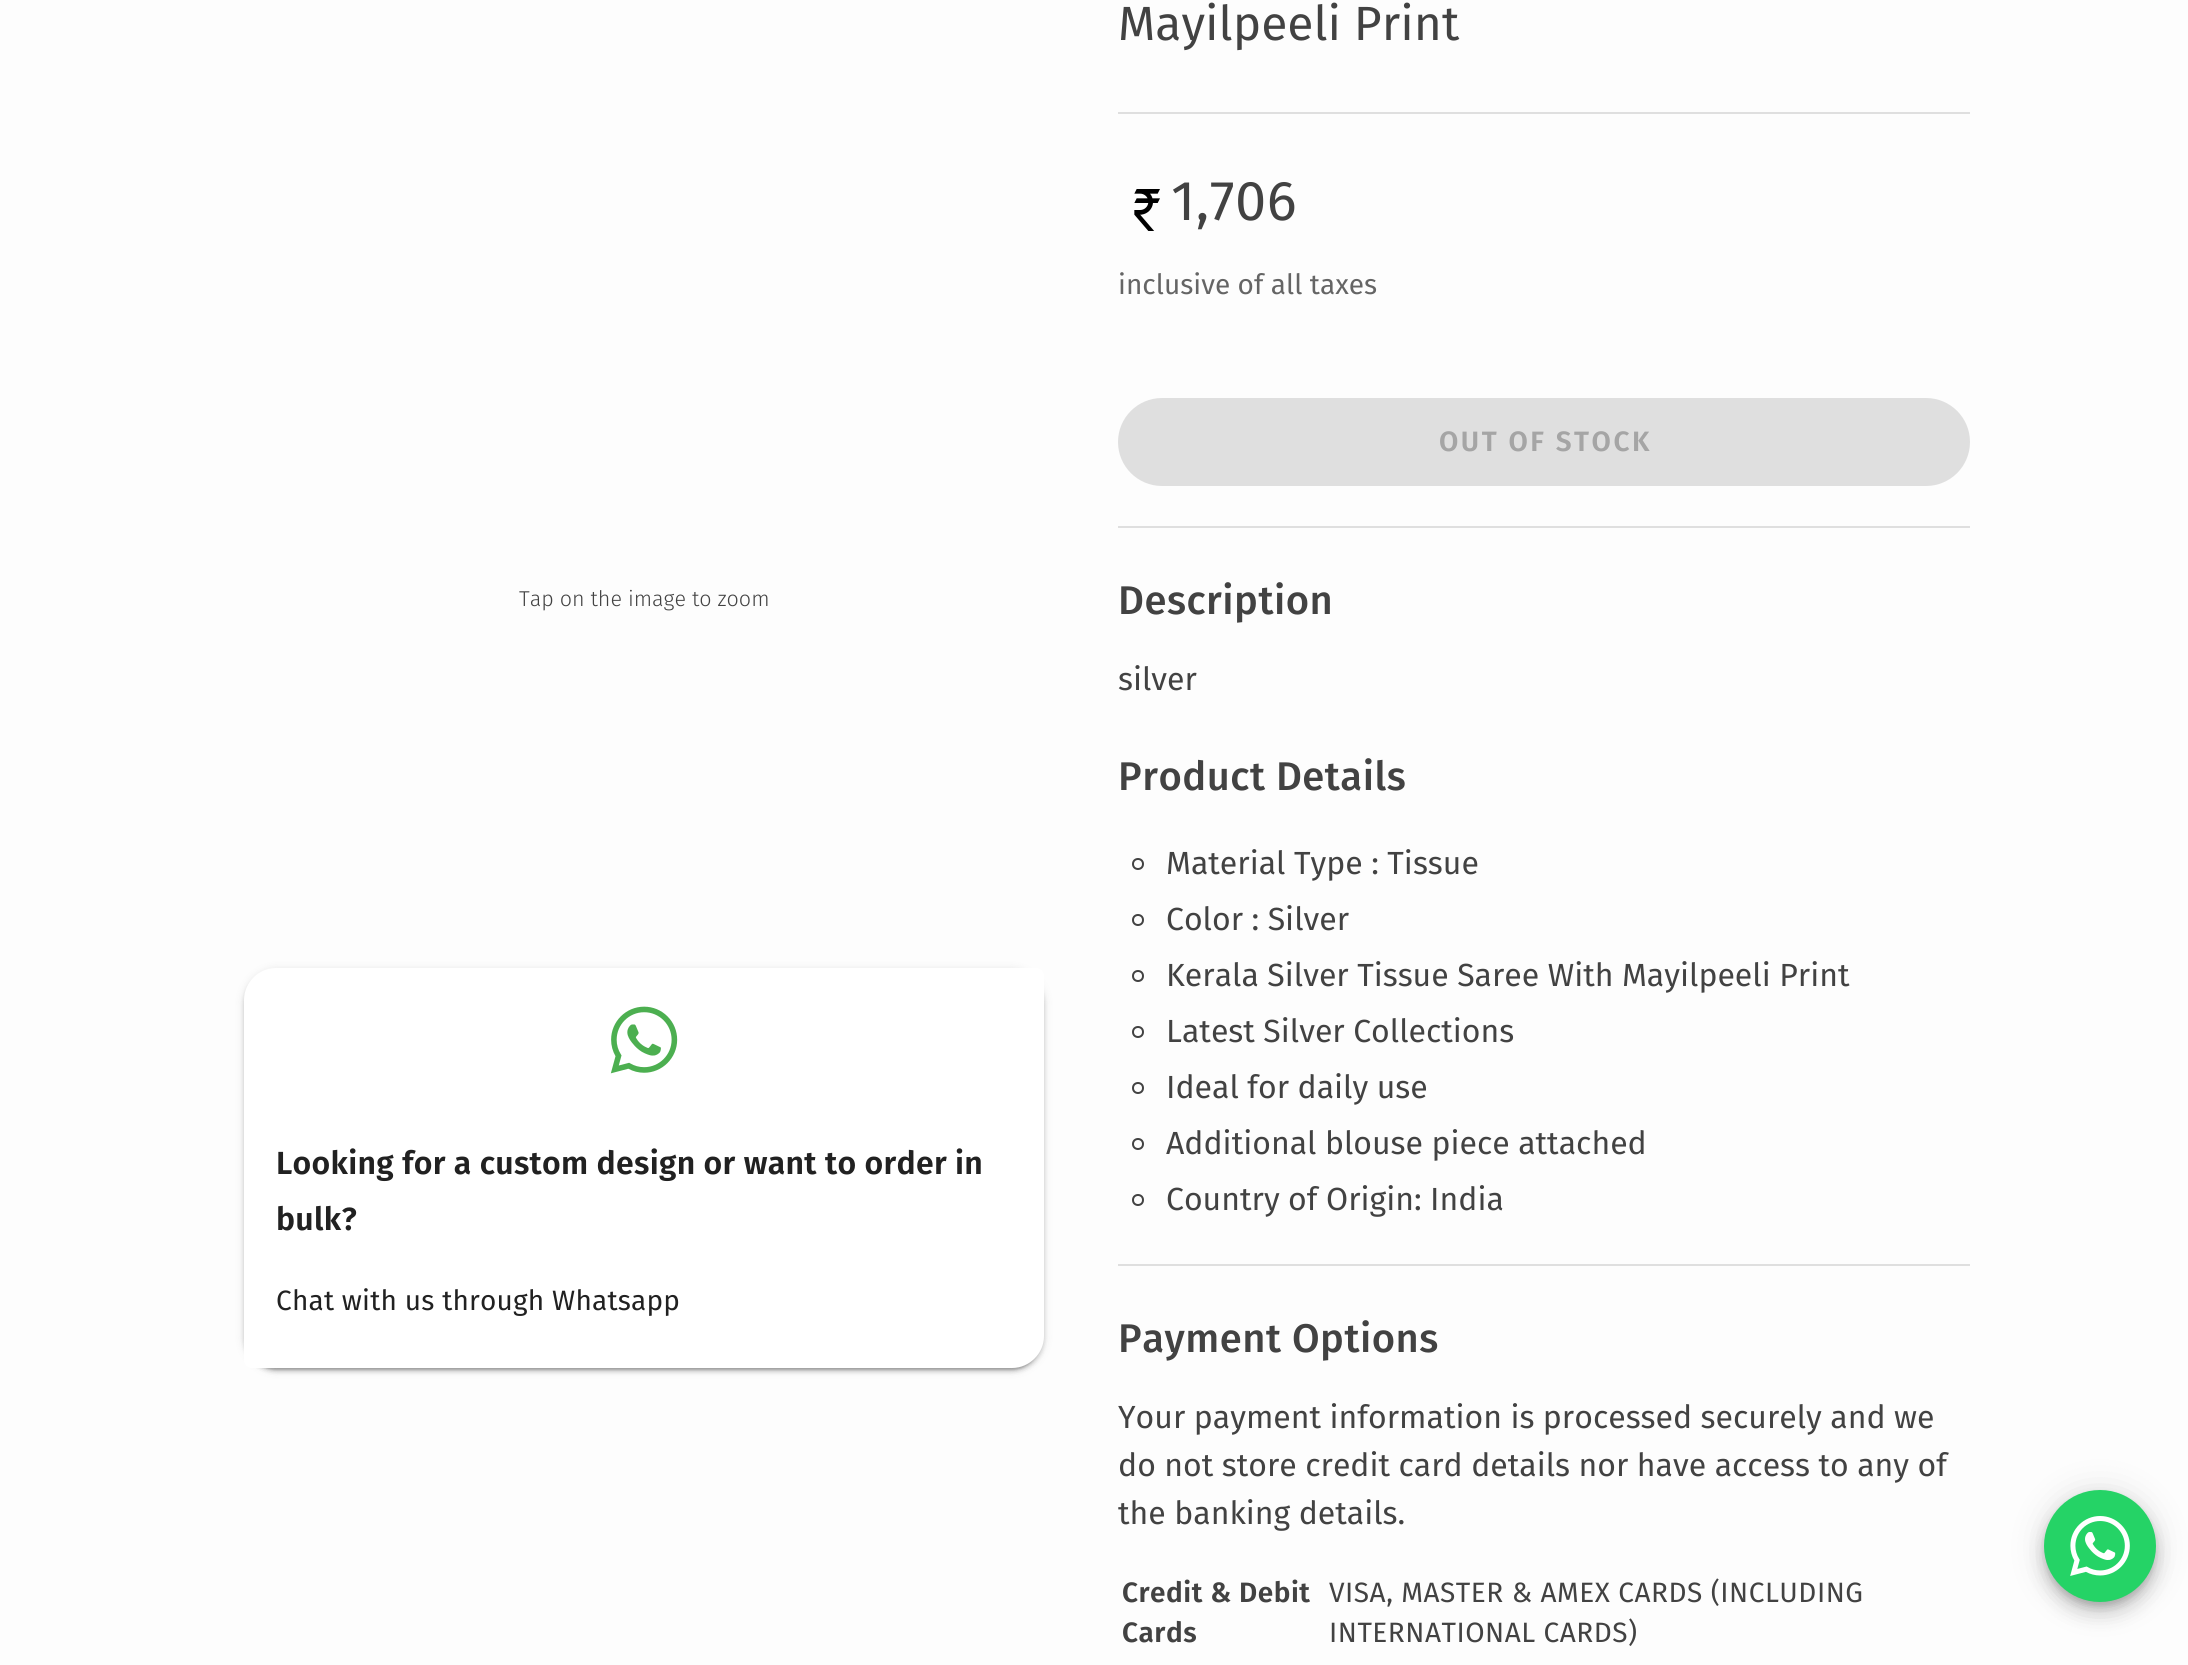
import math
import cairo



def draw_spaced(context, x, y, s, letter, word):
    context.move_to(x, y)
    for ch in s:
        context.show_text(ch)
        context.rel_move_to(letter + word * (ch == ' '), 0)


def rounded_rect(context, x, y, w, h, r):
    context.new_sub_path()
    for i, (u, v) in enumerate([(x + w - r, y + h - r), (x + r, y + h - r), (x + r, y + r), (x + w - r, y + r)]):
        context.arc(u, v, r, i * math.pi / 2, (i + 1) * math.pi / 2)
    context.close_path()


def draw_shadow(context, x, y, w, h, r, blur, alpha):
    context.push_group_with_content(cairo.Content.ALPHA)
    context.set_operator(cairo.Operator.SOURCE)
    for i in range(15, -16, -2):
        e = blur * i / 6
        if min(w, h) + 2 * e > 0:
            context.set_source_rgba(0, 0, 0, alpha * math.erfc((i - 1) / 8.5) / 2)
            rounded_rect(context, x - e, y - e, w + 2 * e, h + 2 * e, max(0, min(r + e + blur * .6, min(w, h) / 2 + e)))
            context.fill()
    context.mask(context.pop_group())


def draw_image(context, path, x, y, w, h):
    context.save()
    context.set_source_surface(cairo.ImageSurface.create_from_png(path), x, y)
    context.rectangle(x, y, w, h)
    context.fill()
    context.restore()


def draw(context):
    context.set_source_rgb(253 / 255, 253 / 255, 253 / 255)
    context.paint()
    context.set_source_rgb(0, 0, 0)
    draw_shadow(context, 244, 970, 800, 400, 32, 5, 0.12)
    draw_shadow(context, 244, 972, 800, 400, 32, 2, 0.14)
    draw_shadow(context, 248, 978, 792, 392, 28, 1, 0.2)
    context.set_source_rgb(1, 1, 1)
    context.new_path()
    context.move_to(276, 968)
    context.line_to(1036, 968)
    context.curve_to(1040.5, 968, 1044, 971.5, 1044, 976)
    context.line_to(1044, 1336)
    context.curve_to(1044, 1353.5, 1029.5, 1368, 1012, 1368)
    context.line_to(252, 1368)
    context.curve_to(247.5, 1368, 244, 1364.5, 244, 1360)
    context.line_to(244, 1000)
    context.curve_to(244, 982.5, 258.5, 968, 276, 968)
    context.close_path()
    context.fill()
    draw_image(context, "images/1.png", 610, 1006, 68, 68)
    context.set_source_rgb(223 / 255, 223 / 255, 223 / 255)
    context.rectangle(1118, 112, 852, 2)
    context.fill()
    draw_image(context, "images/2.png", 1134, 189, 26, 42)
    rounded_rect(context, 1118, 398, 852, 88, 44)
    context.fill()
    context.rectangle(1118, 526, 852, 2)
    context.fill()
    context.arc(1138, 864, 5, 0, 2 * math.pi)
    context.set_source_rgb(66 / 255, 66 / 255, 66 / 255)
    context.stroke()
    context.arc(1138, 920, 5, 0, 2 * math.pi)
    context.stroke()
    context.arc(1138, 976, 5, 0, 2 * math.pi)
    context.stroke()
    context.arc(1138, 1032, 5, 0, 2 * math.pi)
    context.stroke()
    context.arc(1138, 1088, 5, 0, 2 * math.pi)
    context.stroke()
    context.arc(1138, 1144, 5, 0, 2 * math.pi)
    context.stroke()
    context.arc(1138, 1200, 5, 0, 2 * math.pi)
    context.stroke()
    context.set_source_rgb(223 / 255, 223 / 255, 223 / 255)
    context.rectangle(1118, 1264, 852, 2)
    context.fill()
    context.set_source_rgb(0, 0, 0)
    draw_shadow(context, 2044, 1492, 112, 112, 56, 18, 0.12)
    draw_shadow(context, 2044, 1502, 112, 112, 56, 10, 0.14)
    draw_shadow(context, 2046, 1498, 108, 108, 54, 5, 0.2)
    context.set_source_rgb(37 / 255, 211 / 255, 102 / 255)
    context.arc(2100, 1546, 56, 0, 2 * math.pi)
    context.fill()
    draw_image(context, "images/3.png", 2070, 1516, 60, 60)
    context.select_font_face("Fira Sans Light")
    context.set_font_size(21.5)
    context.set_source_rgb(66 / 255, 66 / 255, 66 / 255)
    context.move_to(519, 606)
    context.show_text("Tap on the image to zoom")
    context.select_font_face("Fira Sans SemiBold")
    context.set_font_size(32)
    context.set_source_rgb(33 / 255, 33 / 255, 33 / 255)
    draw_spaced(context, 276, 1174, "Looking for a custom design or want to order in", 0.3, 0)
    draw_spaced(context, 276, 1230, "bulk?", 0.3, 0)
    context.select_font_face("Fira Sans")
    context.set_font_size(28)
    draw_spaced(context, 276, 1310, "Chat with us through Whatsapp", 0.2, 0)
    context.set_font_size(48)
    context.set_source_rgb(66 / 255, 66 / 255, 66 / 255)
    context.move_to(1118, 40)
    context.show_text("Mayilpeeli Print")
    context.set_font_size(56)
    draw_spaced(context, 1171, 220, "1,706", 0.5, 0)
    context.set_font_size(28)
    context.set_source_rgb(101 / 255, 101 / 255, 101 / 255)
    context.move_to(1118, 294)
    context.show_text("inclusive of all taxes")
    context.select_font_face("Fira Sans SemiBold")
    context.set_source_rgb(165 / 255, 165 / 255, 165 / 255)
    draw_spaced(context, 1439, 451, "OUT OF STOCK", 2.5, 0)
    context.select_font_face("Fira Sans Medium")
    context.set_font_size(40)
    context.set_source_rgb(66 / 255, 66 / 255, 66 / 255)
    draw_spaced(context, 1118, 614, "Description", 0.5, 0)
    context.select_font_face("Fira Sans")
    context.set_font_size(32)
    context.move_to(1118, 690)
    context.show_text("silver")
    context.select_font_face("Fira Sans Medium")
    context.set_font_size(40)
    draw_spaced(context, 1118, 790, "Product Details", 0.5, 0)
    context.select_font_face("Fira Sans")
    context.set_font_size(32)
    context.move_to(1166, 874)
    context.show_text("Material Type : Tissue")
    context.move_to(1166, 930)
    context.show_text("Color : Silver")
    context.move_to(1166, 986)
    context.show_text("Kerala Silver Tissue Saree With Mayilpeeli Print")
    context.move_to(1166, 1042)
    context.show_text("Latest Silver Collections")
    context.move_to(1166, 1098)
    context.show_text("Ideal for daily use")
    context.move_to(1166, 1154)
    context.show_text("Additional blouse piece attached")
    context.move_to(1166, 1210)
    context.show_text("Country of Origin: India")
    context.select_font_face("Fira Sans Medium")
    context.set_font_size(40)
    draw_spaced(context, 1118, 1352, "Payment Options", 0.5, 0)
    context.select_font_face("Fira Sans")
    context.set_font_size(32)
    context.move_to(1118, 1428)
    context.show_text("Your payment information is processed securely and we")
    context.move_to(1118, 1476)
    context.show_text("do not store credit card details nor have access to any of")
    context.move_to(1118, 1524)
    context.show_text("the banking details.")
    context.select_font_face("Fira Sans SemiBold")
    context.set_font_size(28)
    draw_spaced(context, 1122, 1602, "Credit & Debit", 0.5, 0)
    draw_spaced(context, 1122, 1642, "Cards", 0.5, 0)
    context.select_font_face("Fira Sans")
    draw_spaced(context, 1329, 1602, "VISA, MASTER & AMEX CARDS (INCLUDING", 0.5, 0)
    draw_spaced(context, 1329, 1642, "INTERNATIONAL CARDS)", 0.5, 0)


surface = cairo.ImageSurface(cairo.Format.RGB24, 2188, 1665)
context = cairo.Context(surface)
options = cairo.FontOptions()
options.set_hint_metrics(cairo.HintMetrics.OFF)
options.set_hint_style(cairo.HintStyle.NONE)
context.set_font_options(options)
context.set_miter_limit(4)
draw(context)
surface.write_to_png("out.png")
